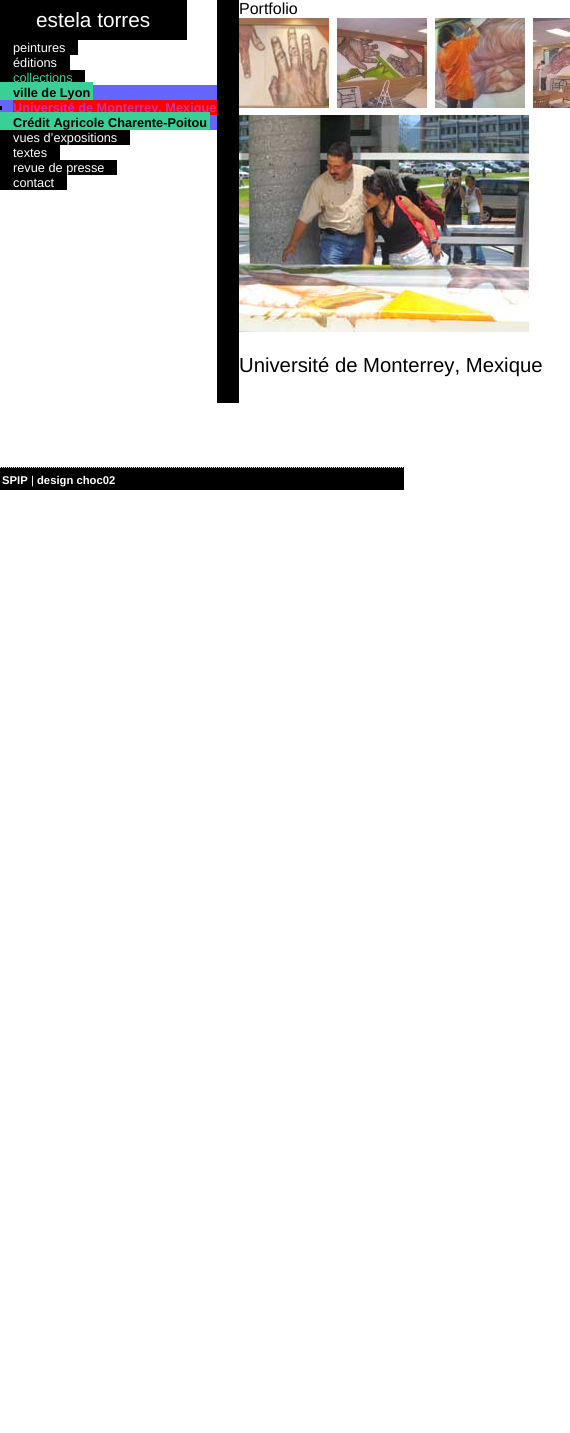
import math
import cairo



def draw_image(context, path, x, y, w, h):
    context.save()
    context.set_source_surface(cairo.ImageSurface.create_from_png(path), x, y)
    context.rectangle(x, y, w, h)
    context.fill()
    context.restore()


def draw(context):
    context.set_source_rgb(1, 1, 1)
    context.paint()
    context.set_source_rgb(0, 0, 0)
    context.rectangle(0, 0, 187, 40)
    context.fill()
    context.rectangle(0, 40, 78, 15)
    context.fill()
    context.rectangle(0, 55, 70, 15)
    context.fill()
    context.rectangle(0, 70, 85, 12)
    context.fill()
    context.set_source_rgb(102 / 255, 102 / 255, 1)
    context.rectangle(0, 85, 217, 45)
    context.fill()
    context.set_source_rgb(58 / 255, 207 / 255, 151 / 255)
    context.rectangle(0, 82, 93, 18)
    context.fill()
    context.set_source_rgb(0, 0, 0)
    context.rectangle(0, 106, 2, 4)
    context.fill()
    context.set_source_rgb(1, 0, 0)
    context.rectangle(13, 100, 204, 15)
    context.fill()
    context.set_source_rgb(0, 0, 0)
    context.rectangle(0, 130, 130, 15)
    context.fill()
    context.rectangle(0, 145, 60, 15)
    context.fill()
    context.rectangle(0, 160, 117, 15)
    context.fill()
    context.rectangle(0, 175, 67, 15)
    context.fill()
    context.rectangle(217, 0, 22, 403)
    context.fill()
    draw_image(context, "images/1.png", 239, 18, 90, 90)
    draw_image(context, "images/2.png", 337, 18, 90, 90)
    draw_image(context, "images/3.png", 435, 18, 90, 90)
    draw_image(context, "images/4.png", 533, 18, 37, 90)
    draw_image(context, "images/5.png", 239, 115, 290, 217)
    context.rectangle(0, 467, 404, 23)
    context.fill()
    context.new_path()
    context.move_to(0, 467.5)
    context.line_to(404, 467.5)
    context.set_source_rgb(204 / 255, 204 / 255, 204 / 255)
    context.set_line_width(1)
    context.set_dash([1, 1])
    context.stroke()
    context.select_font_face("Liberation Sans")
    context.set_font_size(20.75)
    context.set_source_rgb(1, 1, 1)
    context.move_to(36, 27)
    context.show_text("estela torres")
    context.set_font_size(12.75)
    context.move_to(13, 52)
    context.show_text("peintures")
    context.move_to(13, 67)
    context.show_text("éditions")
    context.set_source_rgb(58 / 255, 207 / 255, 151 / 255)
    context.move_to(13, 82)
    context.show_text("collections")
    context.select_font_face("Liberation Sans", cairo.FontSlant.NORMAL, cairo.FontWeight.BOLD)
    context.set_source_rgb(0, 0, 0)
    context.move_to(13, 97)
    context.show_text("ville de Lyon")
    context.set_source_rgb(204 / 255, 51 / 255, 153 / 255)
    context.move_to(13, 112)
    context.show_text("Université de Monterrey, Mexique")
    context.set_source_rgb(58 / 255, 207 / 255, 151 / 255)
    context.rectangle(0, 112, 210, 18)
    context.fill()
    context.set_source_rgb(0, 0, 0)
    context.move_to(13, 127)
    context.show_text("Crédit Agricole Charente-Poitou")
    context.select_font_face("Liberation Sans")
    context.set_source_rgb(1, 1, 1)
    context.move_to(13, 142)
    context.show_text("vues d’expositions")
    context.move_to(13, 157)
    context.show_text("textes")
    context.move_to(13, 172)
    context.show_text("revue de presse")
    context.move_to(13, 187)
    context.show_text("contact")
    context.set_font_size(16)
    context.set_source_rgb(0, 0, 0)
    context.move_to(239, 14)
    context.show_text("Portfolio")
    context.set_font_size(20.3)
    context.move_to(239, 372)
    context.show_text("Université de Monterrey, Mexique")
    context.select_font_face("Liberation Sans", cairo.FontSlant.NORMAL, cairo.FontWeight.BOLD)
    context.set_font_size(11.25)
    context.set_source_rgb(1, 1, 1)
    context.move_to(2, 484)
    context.show_text("SPIP")
    context.select_font_face("Liberation Sans")
    context.move_to(31, 484)
    context.show_text("|")
    context.select_font_face("Liberation Sans", cairo.FontSlant.NORMAL, cairo.FontWeight.BOLD)
    context.move_to(37, 484)
    context.show_text("design choc02")


surface = cairo.ImageSurface(cairo.Format.RGB24, 570, 1433)
context = cairo.Context(surface)
options = cairo.FontOptions()
options.set_hint_metrics(cairo.HintMetrics.OFF)
options.set_hint_style(cairo.HintStyle.NONE)
context.set_font_options(options)
context.set_miter_limit(4)
draw(context)
surface.write_to_png("out.png")
